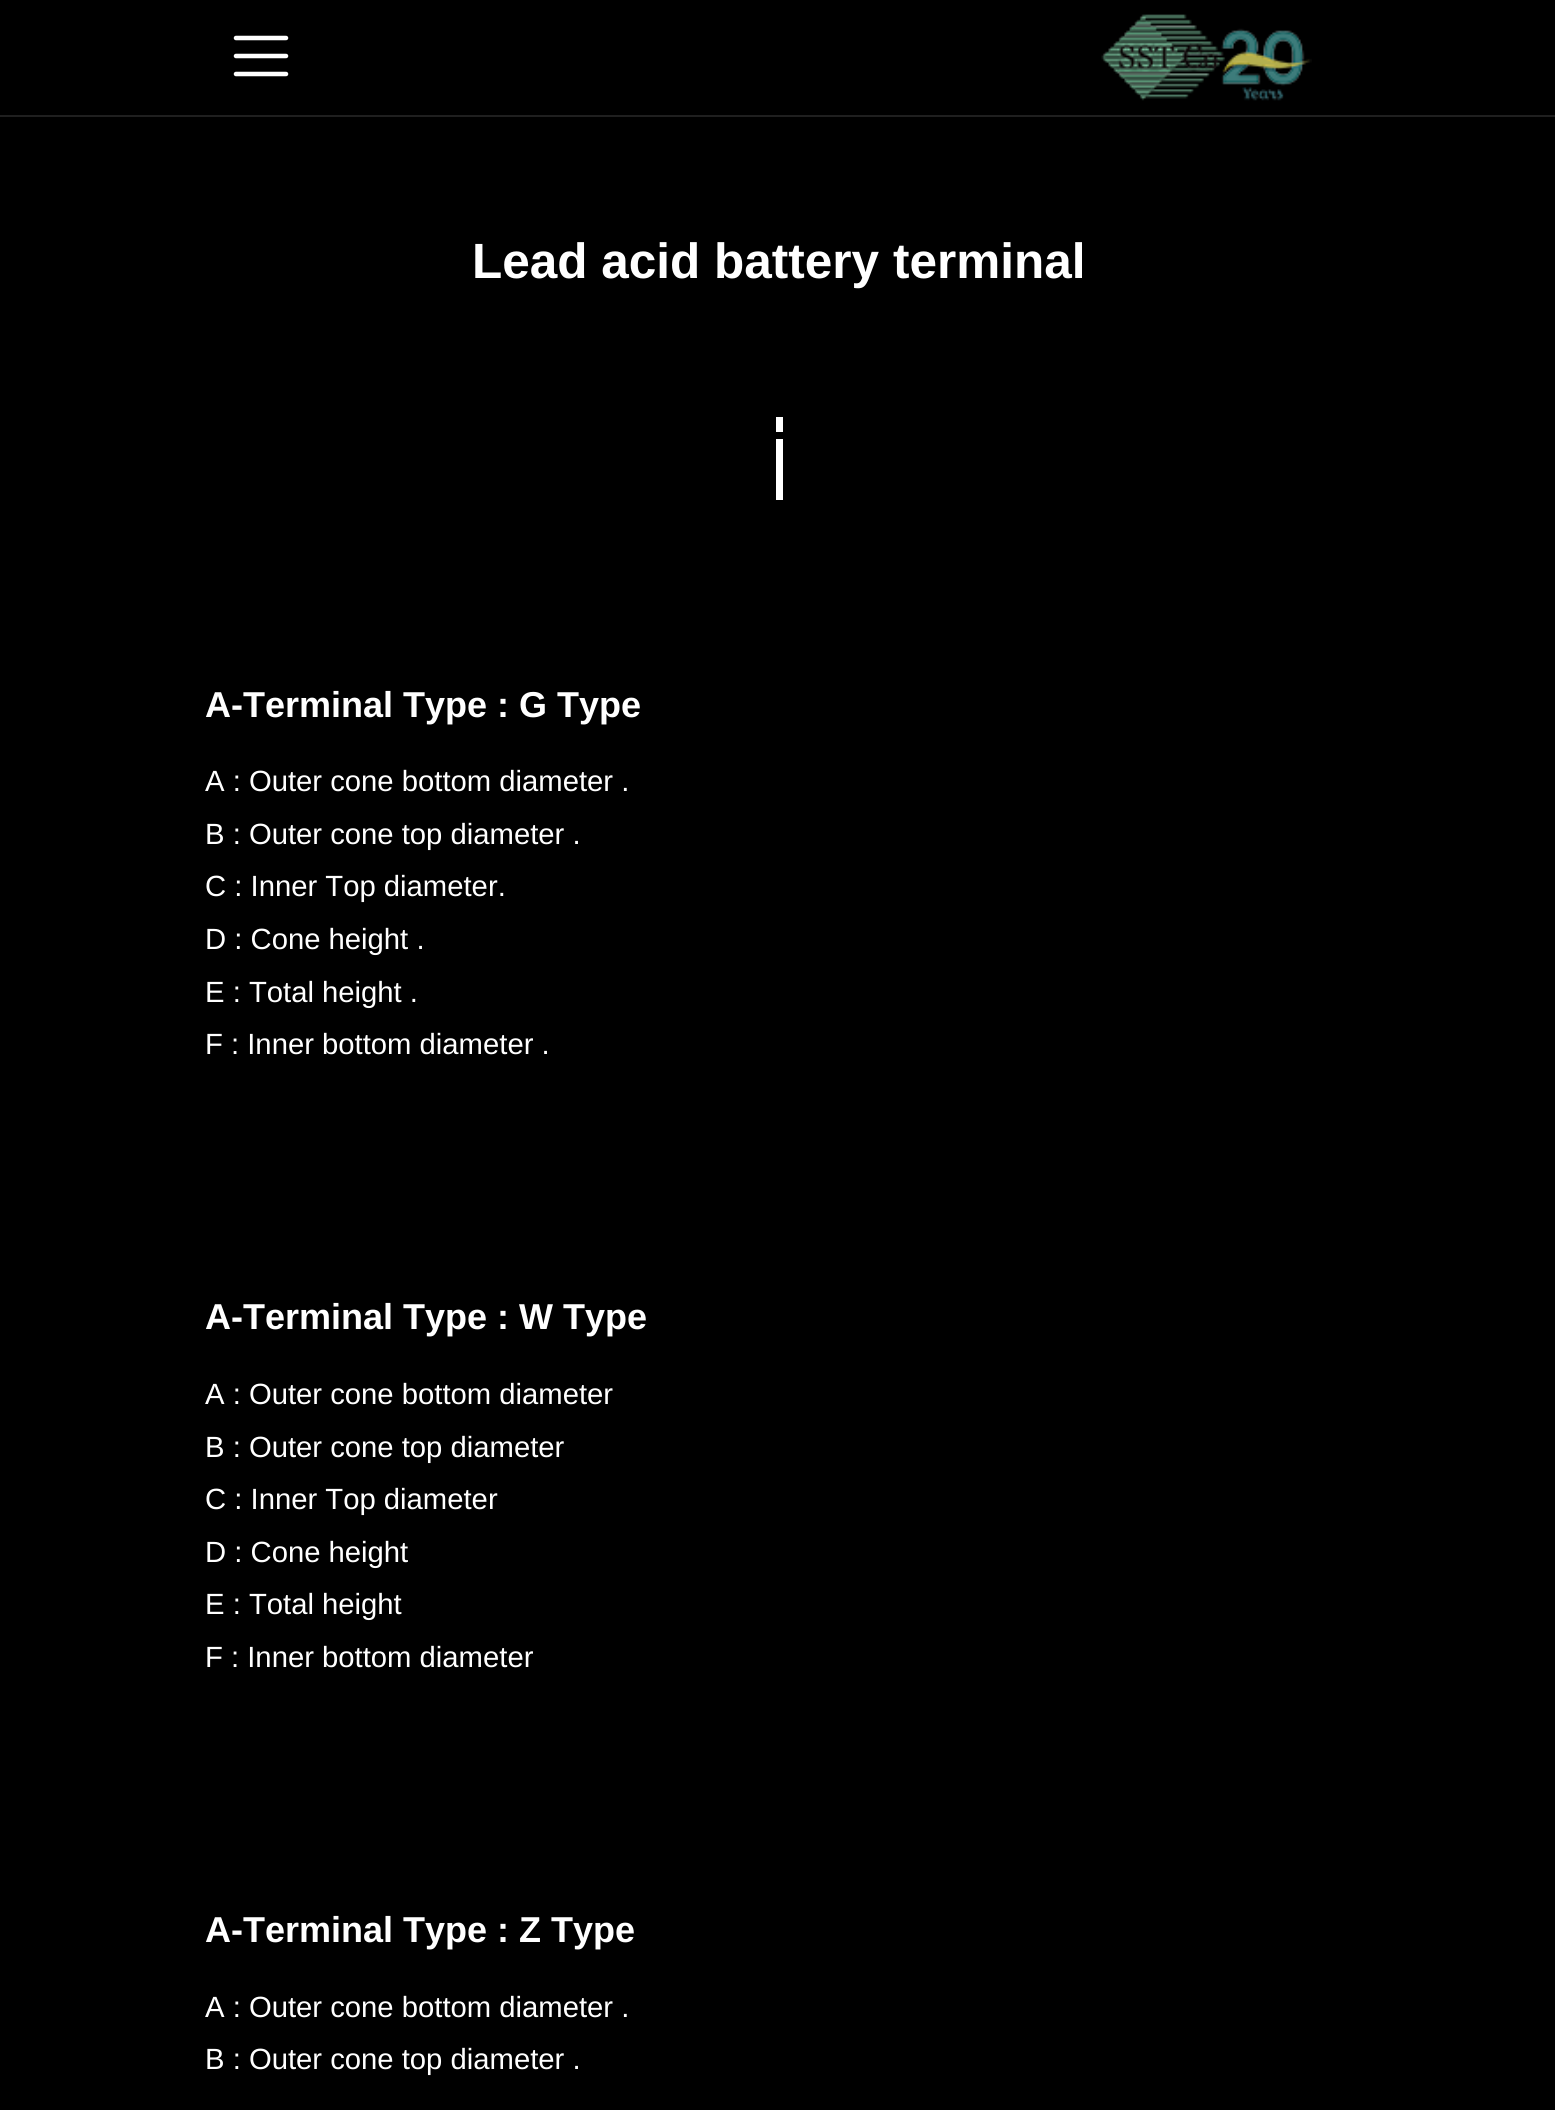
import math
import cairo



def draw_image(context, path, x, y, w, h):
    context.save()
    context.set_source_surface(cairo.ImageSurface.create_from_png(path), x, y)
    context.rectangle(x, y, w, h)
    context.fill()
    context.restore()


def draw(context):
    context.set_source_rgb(0, 0, 0)
    context.paint()
    context.set_source_rgb(31 / 255, 31 / 255, 31 / 255)
    context.rectangle(0, 115, 1555, 2)
    context.fill()
    context.new_path()
    context.move_to(236, 38)
    context.line_to(286, 38)
    context.move_to(236, 56)
    context.line_to(286, 56)
    context.move_to(236, 74)
    context.line_to(286, 74)
    context.set_source_rgb(1, 1, 1)
    context.set_line_width(4.5)
    context.set_line_cap(cairo.LineCap.ROUND)
    context.stroke()
    draw_image(context, "images/1.png", 1101, 14, 211, 87)
    context.rectangle(776, 410, 7, 90)
    context.fill()
    context.set_source_rgb(0, 0, 0)
    context.rectangle(776, 410, 7, 7)
    context.fill()
    context.rectangle(776, 432, 7, 7)
    context.fill()
    context.select_font_face("Liberation Sans", cairo.FontSlant.NORMAL, cairo.FontWeight.BOLD)
    context.set_font_size(49.5)
    context.set_source_rgb(1, 1, 1)
    context.move_to(472, 278)
    context.show_text("Lead acid battery terminal")
    context.set_font_size(36)
    context.move_to(205, 717)
    context.show_text("A-Terminal Type : G Type")
    context.select_font_face("Liberation Sans")
    context.set_font_size(29.25)
    context.move_to(205, 791)
    context.show_text("A : Outer cone bottom diameter .")
    context.move_to(205, 844)
    context.show_text("B : Outer cone top diameter .")
    context.move_to(205, 896)
    context.show_text("C : Inner Top diameter.")
    context.move_to(205, 949)
    context.show_text("D : Cone height .")
    context.move_to(205, 1002)
    context.show_text("E : Total height .")
    context.move_to(205, 1054)
    context.show_text("F : Inner bottom diameter .")
    context.select_font_face("Liberation Sans", cairo.FontSlant.NORMAL, cairo.FontWeight.BOLD)
    context.set_font_size(36)
    context.move_to(205, 1329)
    context.show_text("A-Terminal Type : W Type")
    context.select_font_face("Liberation Sans")
    context.set_font_size(29.25)
    context.move_to(205, 1404)
    context.show_text("A : Outer cone bottom diameter")
    context.move_to(205, 1457)
    context.show_text("B : Outer cone top diameter")
    context.move_to(205, 1509)
    context.show_text("C : Inner Top diameter")
    context.move_to(205, 1562)
    context.show_text("D : Cone height")
    context.move_to(205, 1614)
    context.show_text("E : Total height")
    context.move_to(205, 1667)
    context.show_text("F : Inner bottom diameter")
    context.select_font_face("Liberation Sans", cairo.FontSlant.NORMAL, cairo.FontWeight.BOLD)
    context.set_font_size(36)
    context.move_to(205, 1942)
    context.show_text("A-Terminal Type : Z Type")
    context.select_font_face("Liberation Sans")
    context.set_font_size(29.25)
    context.move_to(205, 2017)
    context.show_text("A : Outer cone bottom diameter .")
    context.move_to(205, 2069)
    context.show_text("B : Outer cone top diameter .")


surface = cairo.ImageSurface(cairo.Format.RGB24, 1555, 2110)
context = cairo.Context(surface)
options = cairo.FontOptions()
options.set_hint_metrics(cairo.HintMetrics.OFF)
options.set_hint_style(cairo.HintStyle.NONE)
context.set_font_options(options)
context.set_miter_limit(4)
draw(context)
surface.write_to_png("out.png")
